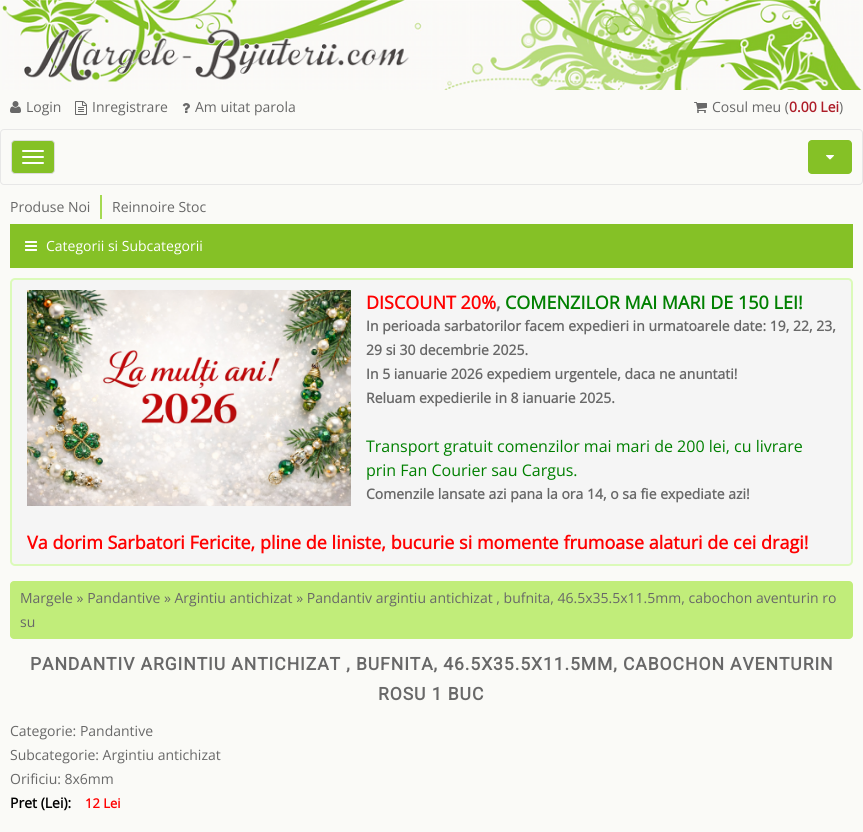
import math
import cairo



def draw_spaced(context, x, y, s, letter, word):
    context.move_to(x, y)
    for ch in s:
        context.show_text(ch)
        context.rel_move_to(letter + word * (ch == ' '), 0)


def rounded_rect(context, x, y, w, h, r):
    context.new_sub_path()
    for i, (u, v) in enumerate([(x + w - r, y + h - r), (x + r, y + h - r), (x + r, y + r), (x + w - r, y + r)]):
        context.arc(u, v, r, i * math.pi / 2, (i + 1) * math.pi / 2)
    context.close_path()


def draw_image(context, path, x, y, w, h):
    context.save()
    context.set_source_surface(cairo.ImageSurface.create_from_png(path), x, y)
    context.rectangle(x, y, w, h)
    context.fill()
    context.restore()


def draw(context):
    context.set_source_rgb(250 / 255, 250 / 255, 247 / 255)
    context.paint()
    draw_image(context, "images/1.png", 2, 0, 860, 90)
    draw_image(context, "images/2.png", 10, 101, 11, 12)
    draw_image(context, "images/3.png", 75, 101, 12, 14)
    draw_image(context, "images/4.png", 182, 103, 8, 10)
    draw_image(context, "images/5.png", 694, 102, 13, 11)
    rounded_rect(context, 0.5, 129.5, 862, 55, 3.5)
    context.set_source_rgb(231 / 255, 231 / 255, 231 / 255)
    context.set_line_width(1)
    context.stroke()
    context.set_source_rgb(133 / 255, 193 / 255, 38 / 255)
    rounded_rect(context, 11.5, 140.5, 43, 33, 3.5)
    context.fill_preserve()
    context.set_source_rgb(221 / 255, 221 / 255, 221 / 255)
    context.stroke()
    context.set_source_rgb(1, 1, 1)
    rounded_rect(context, 22, 150, 22, 2, 1)
    context.fill()
    rounded_rect(context, 22, 156, 22, 2, 1)
    context.fill()
    rounded_rect(context, 22, 162, 22, 2, 1)
    context.fill()
    context.set_source_rgb(133 / 255, 193 / 255, 38 / 255)
    rounded_rect(context, 808, 140, 44, 34, 4)
    context.fill()
    draw_image(context, "images/6.png", 826, 155, 8, 5)
    context.set_source_rgb(165 / 255, 218 / 255, 82 / 255)
    context.rectangle(100, 195, 2, 24)
    context.fill()
    context.set_source_rgb(133 / 255, 193 / 255, 38 / 255)
    context.rectangle(10, 224, 843, 44)
    context.fill()
    draw_image(context, "images/7.png", 25, 241, 12, 10)
    context.set_source_rgb(245 / 255, 245 / 255, 245 / 255)
    rounded_rect(context, 11, 279, 841, 286, 4)
    context.fill_preserve()
    context.set_source_rgb(219 / 255, 250 / 255, 185 / 255)
    context.set_line_width(2)
    context.stroke()
    draw_image(context, "images/8.png", 27, 290, 324, 216)
    context.set_source_rgb(193 / 255, 237 / 255, 122 / 255)
    rounded_rect(context, 10, 581, 843, 58, 4)
    context.fill()
    context.select_font_face("Open Sans")
    context.set_font_size(14)
    context.set_source_rgb(104 / 255, 104 / 255, 104 / 255)
    context.move_to(26, 112)
    context.show_text("Login")
    context.move_to(92, 112)
    context.show_text("Inregistrare")
    context.move_to(195, 112)
    context.show_text("Am uitat parola")
    context.move_to(712, 112)
    context.show_text("Cosul meu (")
    context.select_font_face("Open Sans", cairo.FontSlant.NORMAL, cairo.FontWeight.BOLD)
    context.set_source_rgb(173 / 255, 29 / 255, 40 / 255)
    context.move_to(789, 112)
    context.show_text("0.00 Lei")
    context.select_font_face("Open Sans")
    context.set_source_rgb(104 / 255, 104 / 255, 104 / 255)
    context.move_to(839, 112)
    context.show_text(")")
    context.move_to(10, 212)
    context.show_text("Produse Noi")
    context.move_to(112, 212)
    context.show_text("Reinnoire Stoc")
    context.set_source_rgb(1, 1, 1)
    context.move_to(46, 251)
    context.show_text("Categorii si Subcategorii")
    context.select_font_face("Open Sans", cairo.FontSlant.NORMAL, cairo.FontWeight.BOLD)
    context.set_font_size(18)
    context.set_source_rgb(1, 0, 0)
    context.move_to(366, 309)
    context.show_text("DISCOUNT 20%")
    context.set_source_rgb(104 / 255, 104 / 255, 104 / 255)
    context.move_to(496, 309)
    context.show_text(",")
    context.set_source_rgb(0, 128 / 255, 0)
    context.move_to(505, 309)
    context.show_text("COMENZILOR MAI MARI DE 150 LEI!")
    context.set_font_size(14)
    context.set_source_rgb(104 / 255, 104 / 255, 104 / 255)
    context.move_to(366, 331)
    context.show_text("In perioada sarbatorilor facem expedieri in urmatoarele date: 19, 22, 23,")
    context.move_to(366, 355)
    context.show_text("29 si 30 decembrie 2025.")
    context.move_to(366, 379)
    context.show_text("In 5 ianuarie 2026 expediem urgentele, daca ne anuntati!")
    context.move_to(366, 403)
    context.show_text("Reluam expedierile in 8 ianuarie 2025.")
    context.select_font_face("Open Sans")
    context.set_font_size(16)
    context.set_source_rgb(0, 128 / 255, 0)
    context.move_to(366, 452)
    context.show_text("Transport gratuit comenzilor mai mari de 200 lei, cu livrare")
    context.move_to(366, 476)
    context.show_text("prin Fan Courier sau Cargus.")
    context.select_font_face("Open Sans", cairo.FontSlant.NORMAL, cairo.FontWeight.BOLD)
    context.set_font_size(14)
    context.set_source_rgb(104 / 255, 104 / 255, 104 / 255)
    context.move_to(366, 499)
    context.show_text("Comenzile lansate azi pana la ora 14, o sa fie expediate azi!")
    context.set_font_size(18)
    context.set_source_rgb(1, 0, 0)
    context.move_to(27, 549)
    context.show_text("Va dorim Sarbatori Fericite, pline de liniste, bucurie si momente frumoase alaturi de cei dragi!")
    context.select_font_face("Open Sans")
    context.set_font_size(14)
    context.set_source_rgb(104 / 255, 104 / 255, 104 / 255)
    context.move_to(20, 603)
    context.show_text("Margele » Pandantive » Argintiu antichizat » Pandantiv argintiu antichizat , bufnita, 46.5x35.5x11.5mm, cabochon aventurin ro")
    context.move_to(20, 627)
    context.show_text("su")
    context.select_font_face("Roboto", cairo.FontSlant.NORMAL, cairo.FontWeight.BOLD)
    context.set_font_size(17.6)
    draw_spaced(context, 30, 670, "PANDANTIV ARGINTIU ANTICHIZAT , BUFNITA, 46.5X35.5X11.5MM, CABOCHON AVENTURIN", 0.9, 0)
    draw_spaced(context, 378, 700, "ROSU 1 BUC", 0.9, 0)
    context.select_font_face("Open Sans")
    context.set_font_size(14)
    context.move_to(10, 736)
    context.show_text("Categorie: Pandantive")
    context.move_to(10, 760)
    context.show_text("Subcategorie: Argintiu antichizat")
    context.move_to(10, 784)
    context.show_text("Orificiu: 8x6mm")
    context.select_font_face("Open Sans", cairo.FontSlant.NORMAL, cairo.FontWeight.BOLD)
    context.set_source_rgb(0, 0, 0)
    context.move_to(10, 808)
    context.show_text("Pret (Lei):")
    context.set_font_size(13)
    context.set_source_rgb(1, 0, 0)
    context.move_to(85, 808)
    context.show_text("12 Lei")


surface = cairo.ImageSurface(cairo.Format.RGB24, 863, 832)
context = cairo.Context(surface)
options = cairo.FontOptions()
options.set_hint_metrics(cairo.HintMetrics.OFF)
options.set_hint_style(cairo.HintStyle.NONE)
context.set_font_options(options)
context.set_miter_limit(4)
draw(context)
surface.write_to_png("out.png")
